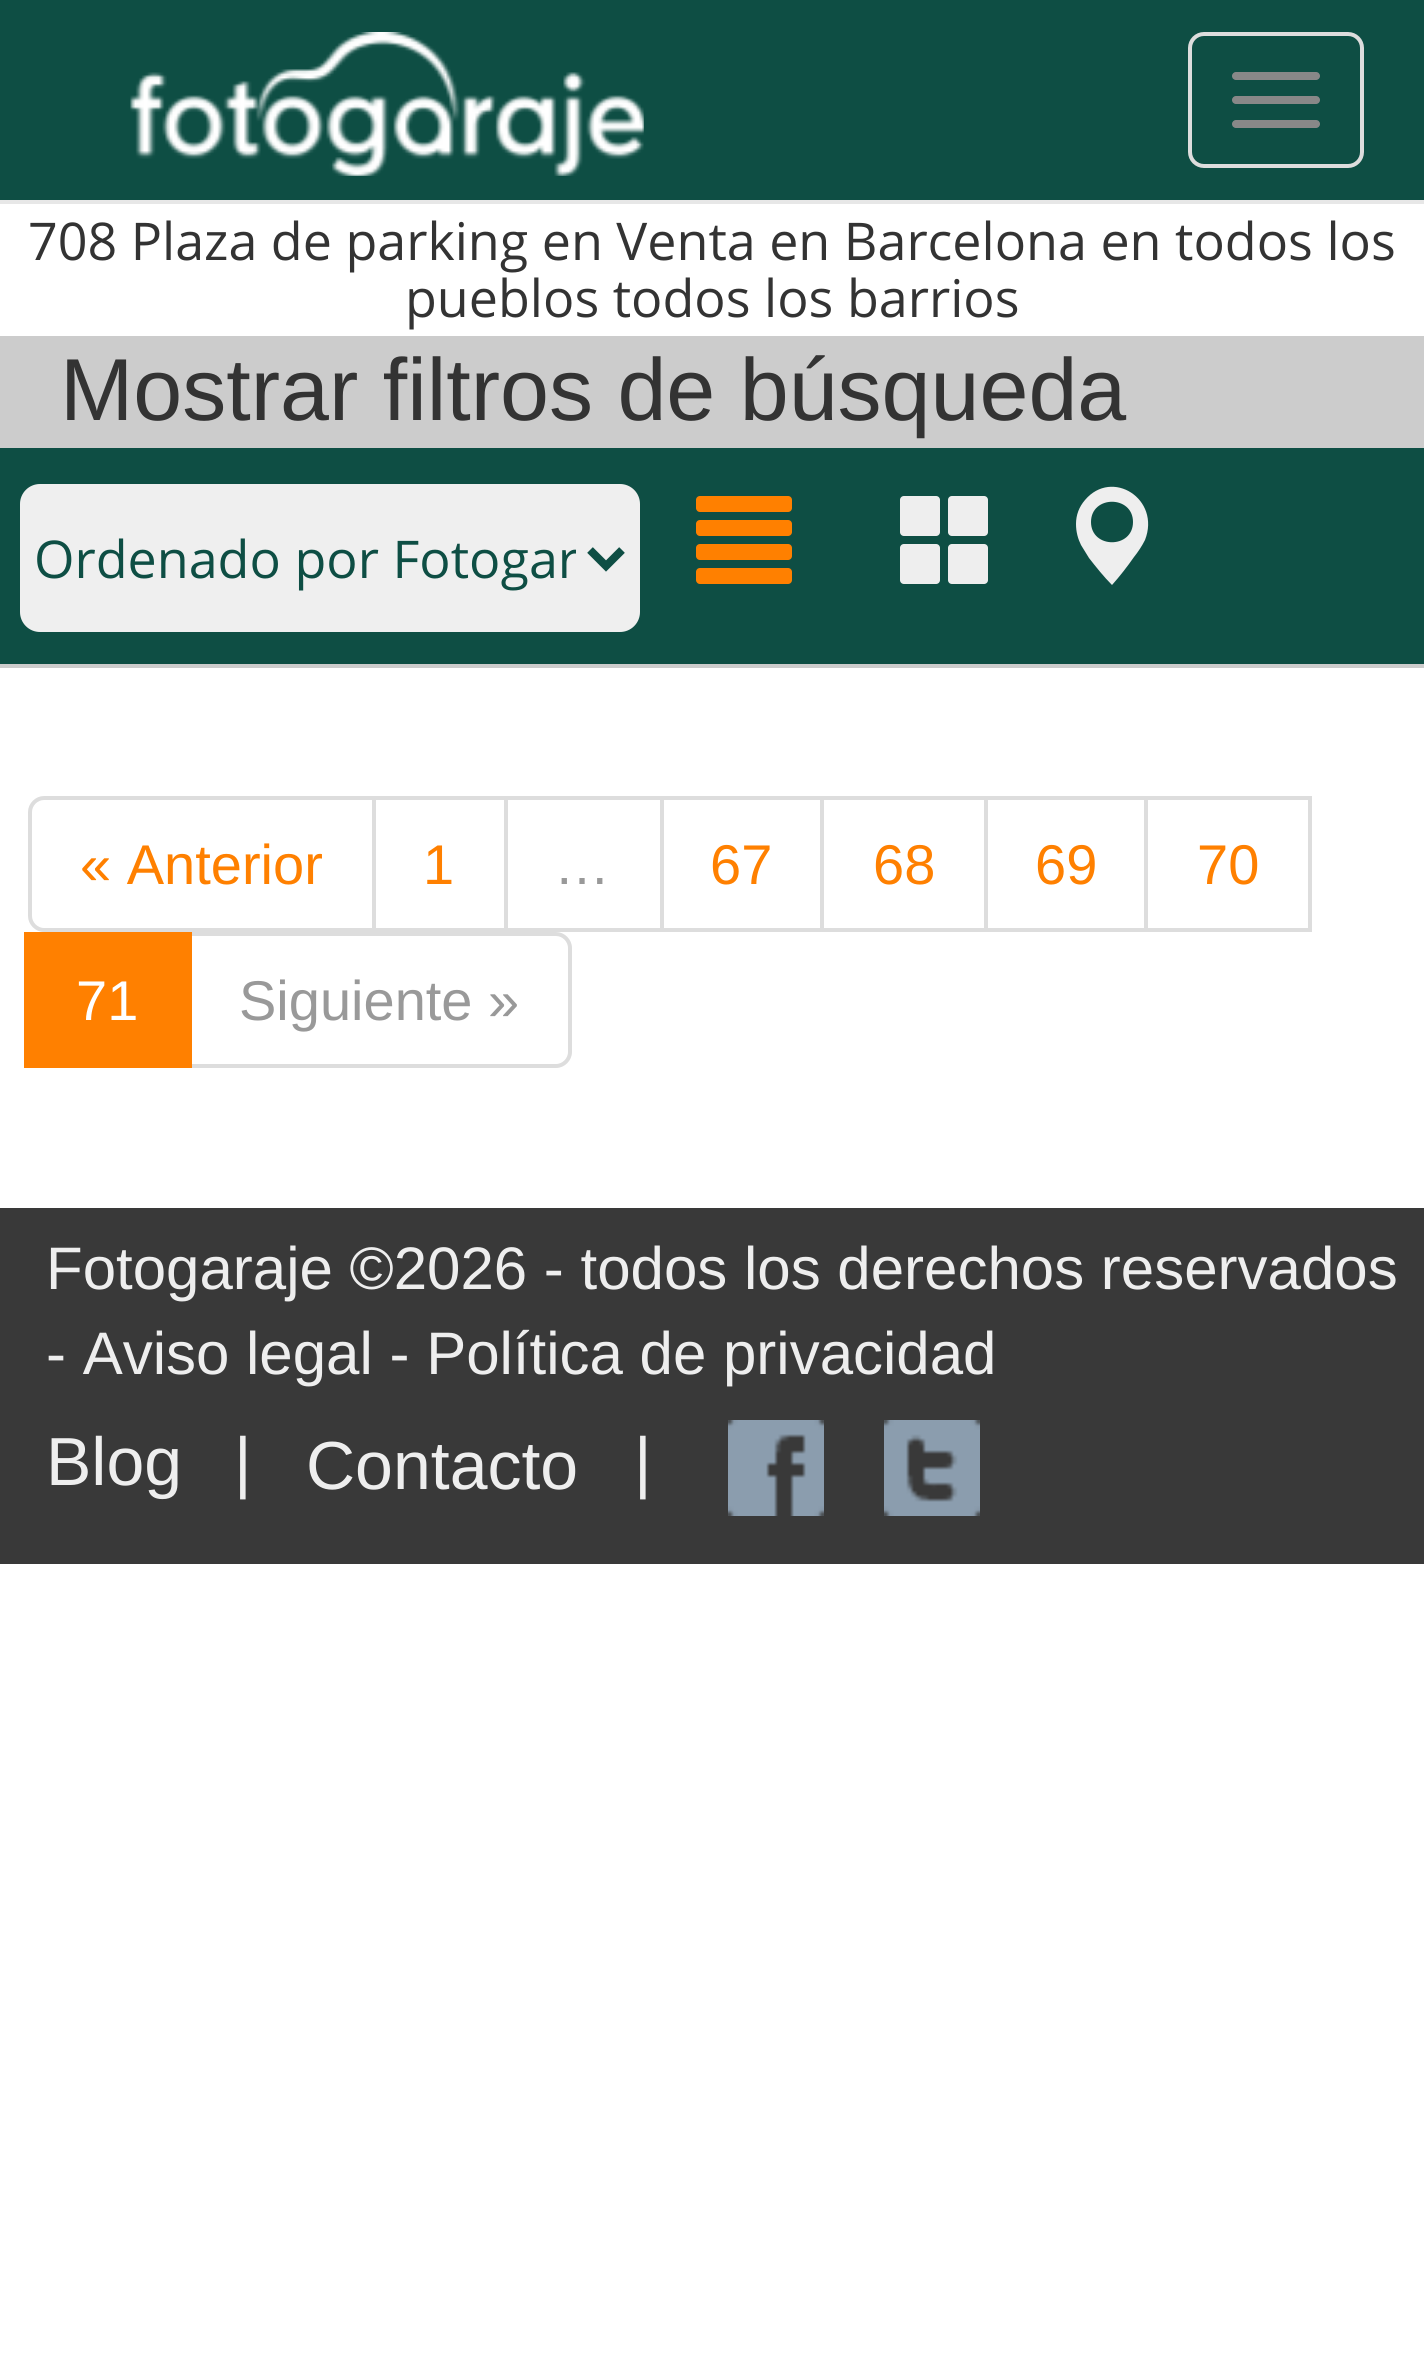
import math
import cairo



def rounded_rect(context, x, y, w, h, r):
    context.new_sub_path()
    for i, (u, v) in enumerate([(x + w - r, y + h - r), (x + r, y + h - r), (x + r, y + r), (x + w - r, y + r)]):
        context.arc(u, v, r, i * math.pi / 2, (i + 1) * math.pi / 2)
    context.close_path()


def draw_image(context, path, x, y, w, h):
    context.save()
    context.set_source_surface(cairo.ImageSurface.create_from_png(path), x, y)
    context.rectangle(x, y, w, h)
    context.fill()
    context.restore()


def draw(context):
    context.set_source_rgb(1, 1, 1)
    context.paint()
    context.set_source_rgb(14 / 255, 78 / 255, 68 / 255)
    context.rectangle(0, 0, 1424, 200)
    context.fill()
    context.set_source_rgb(231 / 255, 231 / 255, 231 / 255)
    context.rectangle(0, 200, 1424, 4)
    context.fill()
    draw_image(context, "images/1.png", 130, 32, 514, 144)
    rounded_rect(context, 1190, 34, 172, 132, 14)
    context.set_source_rgb(221 / 255, 221 / 255, 221 / 255)
    context.set_line_width(4)
    context.stroke()
    context.set_source_rgb(136 / 255, 136 / 255, 136 / 255)
    rounded_rect(context, 1232, 72, 88, 8, 4)
    context.fill()
    rounded_rect(context, 1232, 96, 88, 8, 4)
    context.fill()
    rounded_rect(context, 1232, 120, 88, 8, 4)
    context.fill()
    context.set_source_rgb(204 / 255, 204 / 255, 204 / 255)
    context.rectangle(0, 336, 1424, 112)
    context.fill()
    context.set_source_rgb(14 / 255, 78 / 255, 68 / 255)
    context.rectangle(0, 448, 1424, 216)
    context.fill()
    context.set_source_rgb(204 / 255, 204 / 255, 204 / 255)
    context.rectangle(0, 664, 1424, 4)
    context.fill()
    context.set_source_rgb(239 / 255, 239 / 255, 239 / 255)
    rounded_rect(context, 18, 482, 624, 152, 22)
    context.fill_preserve()
    context.set_source_rgb(14 / 255, 78 / 255, 68 / 255)
    context.stroke()
    context.new_path()
    context.move_to(590, 550)
    context.line_to(606, 566)
    context.line_to(622, 550)
    context.set_line_width(8)
    context.stroke()
    draw_image(context, "images/2.png", 696, 496, 96, 88)
    draw_image(context, "images/3.png", 900, 496, 88, 88)
    context.set_source_rgb(238 / 255, 238 / 255, 238 / 255)
    context.new_path()
    context.move_to(1076, 524)
    context.curve_to(1076, 515, 1079, 507, 1085, 500)
    context.curve_to(1112, 468, 1161, 499, 1145, 540)
    context.curve_to(1142, 546, 1138, 552, 1134, 557)
    context.curve_to(1127, 567, 1120, 576, 1112, 585)
    context.curve_to(1104, 577, 1096, 567, 1089, 558)
    context.line_to(1081, 545)
    context.curve_to(1078, 539, 1076, 532, 1076, 524)
    context.close_path()
    context.move_to(1091, 522)
    context.curve_to(1091, 549, 1133, 549, 1133, 522)
    context.curve_to(1133, 495, 1091, 495, 1091, 522)
    context.close_path()
    context.fill()
    context.new_path()
    context.move_to(44, 798)
    context.line_to(374, 798)
    context.line_to(374, 930)
    context.line_to(44, 930)
    context.curve_to(36.5, 930, 30, 923.5, 30, 916)
    context.line_to(30, 812)
    context.curve_to(30, 804.5, 36.5, 798, 44, 798)
    context.close_path()
    context.set_source_rgb(221 / 255, 221 / 255, 221 / 255)
    context.set_line_width(4)
    context.stroke()
    context.rectangle(374, 798, 132, 132)
    context.stroke()
    context.rectangle(506, 798, 156, 132)
    context.stroke()
    context.rectangle(662, 798, 160, 132)
    context.stroke()
    context.rectangle(822, 798, 164, 132)
    context.stroke()
    context.rectangle(986, 798, 160, 132)
    context.stroke()
    context.rectangle(1146, 798, 164, 132)
    context.stroke()
    context.new_path()
    context.move_to(190, 934)
    context.line_to(556, 934)
    context.curve_to(563.5, 934, 570, 940.5, 570, 948)
    context.line_to(570, 1052)
    context.curve_to(570, 1059.5, 563.5, 1066, 556, 1066)
    context.line_to(190, 1066)
    context.close_path()
    context.stroke()
    context.set_source_rgb(1, 128 / 255, 0)
    context.rectangle(24, 932, 168, 136)
    context.fill()
    context.set_source_rgb(57 / 255, 57 / 255, 57 / 255)
    context.rectangle(0, 1208, 1424, 356)
    context.fill()
    draw_image(context, "images/4.png", 728, 1420, 96, 96)
    draw_image(context, "images/5.png", 884, 1420, 96, 96)
    context.select_font_face("Open Sans")
    context.set_font_size(52)
    context.set_source_rgb(51 / 255, 51 / 255, 51 / 255)
    context.move_to(28, 260)
    context.show_text("708 Plaza de parking en Venta en Barcelona en todos los")
    context.move_to(405, 317)
    context.show_text("pueblos todos los barrios")
    context.select_font_face("Liberation Sans")
    context.set_font_size(88)
    context.move_to(60, 420)
    context.show_text("Mostrar filtros de búsqueda")
    context.save()
    context.rectangle(36, 520, 540, 80)
    context.clip()
    context.select_font_face("Open Sans")
    context.set_font_size(52)
    context.set_source_rgb(14 / 255, 78 / 255, 68 / 255)
    context.move_to(34, 578)
    context.show_text("Ordenado por Fotogar")
    context.restore()
    context.set_font_size(56)
    context.set_source_rgb(1, 128 / 255, 0)
    context.move_to(80, 884)
    context.show_text("« Anterior")
    context.move_to(423, 884)
    context.show_text("1")
    context.set_source_rgb(153 / 255, 153 / 255, 153 / 255)
    context.move_to(554, 884)
    context.show_text("…")
    context.set_source_rgb(1, 128 / 255, 0)
    context.move_to(710, 884)
    context.show_text("67")
    context.move_to(873, 884)
    context.show_text("68")
    context.move_to(1035, 884)
    context.show_text("69")
    context.move_to(1197, 884)
    context.show_text("70")
    context.set_source_rgb(1, 1, 1)
    context.move_to(76, 1020)
    context.show_text("71")
    context.set_source_rgb(153 / 255, 153 / 255, 153 / 255)
    context.move_to(239, 1020)
    context.show_text("Siguiente »")
    context.set_font_size(60)
    context.set_source_rgb(238 / 255, 238 / 255, 238 / 255)
    context.move_to(46, 1289)
    context.show_text("Fotogaraje ©2026 - todos los derechos reservados")
    context.move_to(46, 1374)
    context.show_text("- Aviso legal - Política de privacidad")
    context.set_font_size(68)
    context.move_to(46, 1485)
    context.show_text("Blog")
    context.move_to(234, 1485)
    context.show_text("|")
    context.move_to(306, 1489)
    context.show_text("Contacto")
    context.move_to(634, 1485)
    context.show_text("|")


surface = cairo.ImageSurface(cairo.Format.RGB24, 1424, 2378)
context = cairo.Context(surface)
options = cairo.FontOptions()
options.set_hint_metrics(cairo.HintMetrics.OFF)
options.set_hint_style(cairo.HintStyle.NONE)
context.set_font_options(options)
context.set_miter_limit(4)
draw(context)
surface.write_to_png("out.png")
